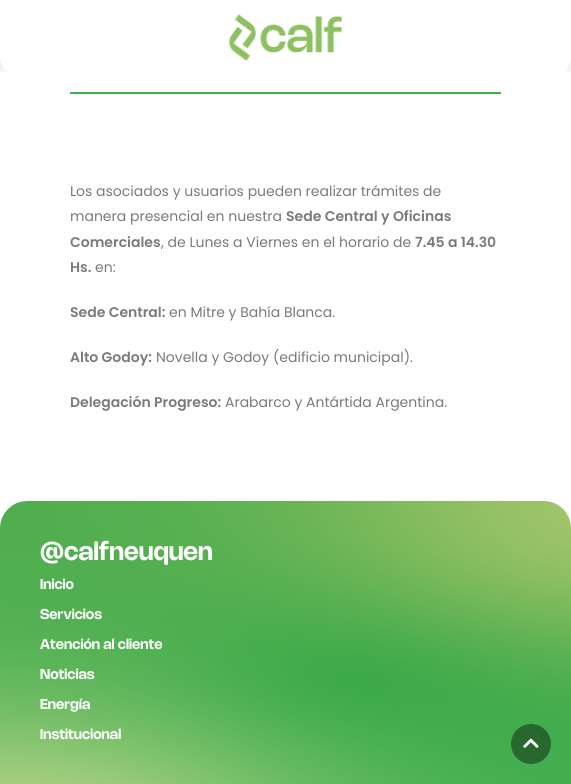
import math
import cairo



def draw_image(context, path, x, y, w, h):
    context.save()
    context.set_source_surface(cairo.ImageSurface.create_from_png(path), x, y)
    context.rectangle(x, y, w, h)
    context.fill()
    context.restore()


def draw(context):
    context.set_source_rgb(1, 1, 1)
    context.paint()
    gradient = cairo.LinearGradient(286, 0, 286, 75)
    gradient.add_color_stop_rgba(0, 0, 0, 0, 0.5)
    gradient.add_color_stop_rgba(1, 0, 0, 0, 0)
    context.set_source(gradient)
    context.rectangle(0, 58, 571, 14)
    context.fill()
    context.set_source_rgb(1, 1, 1)
    context.new_path()
    context.move_to(0, 0)
    context.line_to(571, 0)
    context.line_to(571, 58)
    context.curve_to(571, 67.5, 563.5, 75, 554, 75)
    context.line_to(17, 75)
    context.curve_to(7.5, 75, 0, 67.5, 0, 58)
    context.close_path()
    context.fill()
    draw_image(context, "images/1.png", 228, 14, 115, 47)
    context.set_source_rgb(58 / 255, 178 / 255, 74 / 255)
    context.rectangle(70, 92, 431, 2)
    context.fill()
    draw_image(context, "images/2.png", 0, 501, 571, 283)
    context.set_source_rgba(0, 0, 0, 0.4)
    context.arc(531, 744, 20, 0, 2 * math.pi)
    context.fill()
    draw_image(context, "images/3.png", 523, 738, 16, 10)
    context.select_font_face("Poppins")
    context.set_font_size(14)
    context.set_source_rgb(122 / 255, 122 / 255, 122 / 255)
    context.move_to(70, 196)
    context.show_text("Los asociados y usuarios pueden realizar trámites de")
    context.move_to(70, 221)
    context.show_text("manera presencial en nuestra")
    context.select_font_face("Poppins SemiBold")
    context.move_to(286, 221)
    context.show_text("Sede Central y Oficinas")
    context.move_to(70, 247)
    context.show_text("Comerciales")
    context.select_font_face("Poppins")
    context.move_to(161, 247)
    context.show_text(", de Lunes a Viernes en el horario de")
    context.select_font_face("Poppins SemiBold")
    context.move_to(415, 247)
    context.show_text("7.45 a 14.30")
    context.move_to(70, 272)
    context.show_text("Hs.")
    context.select_font_face("Poppins")
    context.move_to(95, 272)
    context.show_text("en:")
    context.select_font_face("Poppins SemiBold")
    context.move_to(70, 317)
    context.show_text("Sede Central:")
    context.select_font_face("Poppins")
    context.move_to(169, 317)
    context.show_text("en Mitre y Bahía Blanca.")
    context.select_font_face("Poppins SemiBold")
    context.move_to(70, 362)
    context.show_text("Alto Godoy:")
    context.select_font_face("Poppins")
    context.move_to(156, 362)
    context.show_text("Novella y Godoy (edificio municipal).")
    context.select_font_face("Poppins SemiBold")
    context.move_to(70, 407)
    context.show_text("Delegación Progreso:")
    context.select_font_face("Poppins")
    context.move_to(225, 407)
    context.show_text("Arabarco y Antártida Argentina.")
    context.select_font_face("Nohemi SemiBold")
    context.set_font_size(25)
    context.set_source_rgb(1, 1, 1)
    context.move_to(40, 560)
    context.show_text("@calfneuquen")
    context.set_font_size(14)
    context.move_to(40, 589)
    context.show_text("Inicio")
    context.move_to(40, 619)
    context.show_text("Servicios")
    context.move_to(40, 649)
    context.show_text("Atención al cliente")
    context.move_to(40, 679)
    context.show_text("Noticias")
    context.move_to(40, 709)
    context.show_text("Energía")
    context.move_to(40, 739)
    context.show_text("Institucional")


surface = cairo.ImageSurface(cairo.Format.RGB24, 571, 784)
context = cairo.Context(surface)
options = cairo.FontOptions()
options.set_hint_metrics(cairo.HintMetrics.OFF)
options.set_hint_style(cairo.HintStyle.NONE)
context.set_font_options(options)
context.set_miter_limit(4)
draw(context)
surface.write_to_png("out.png")
